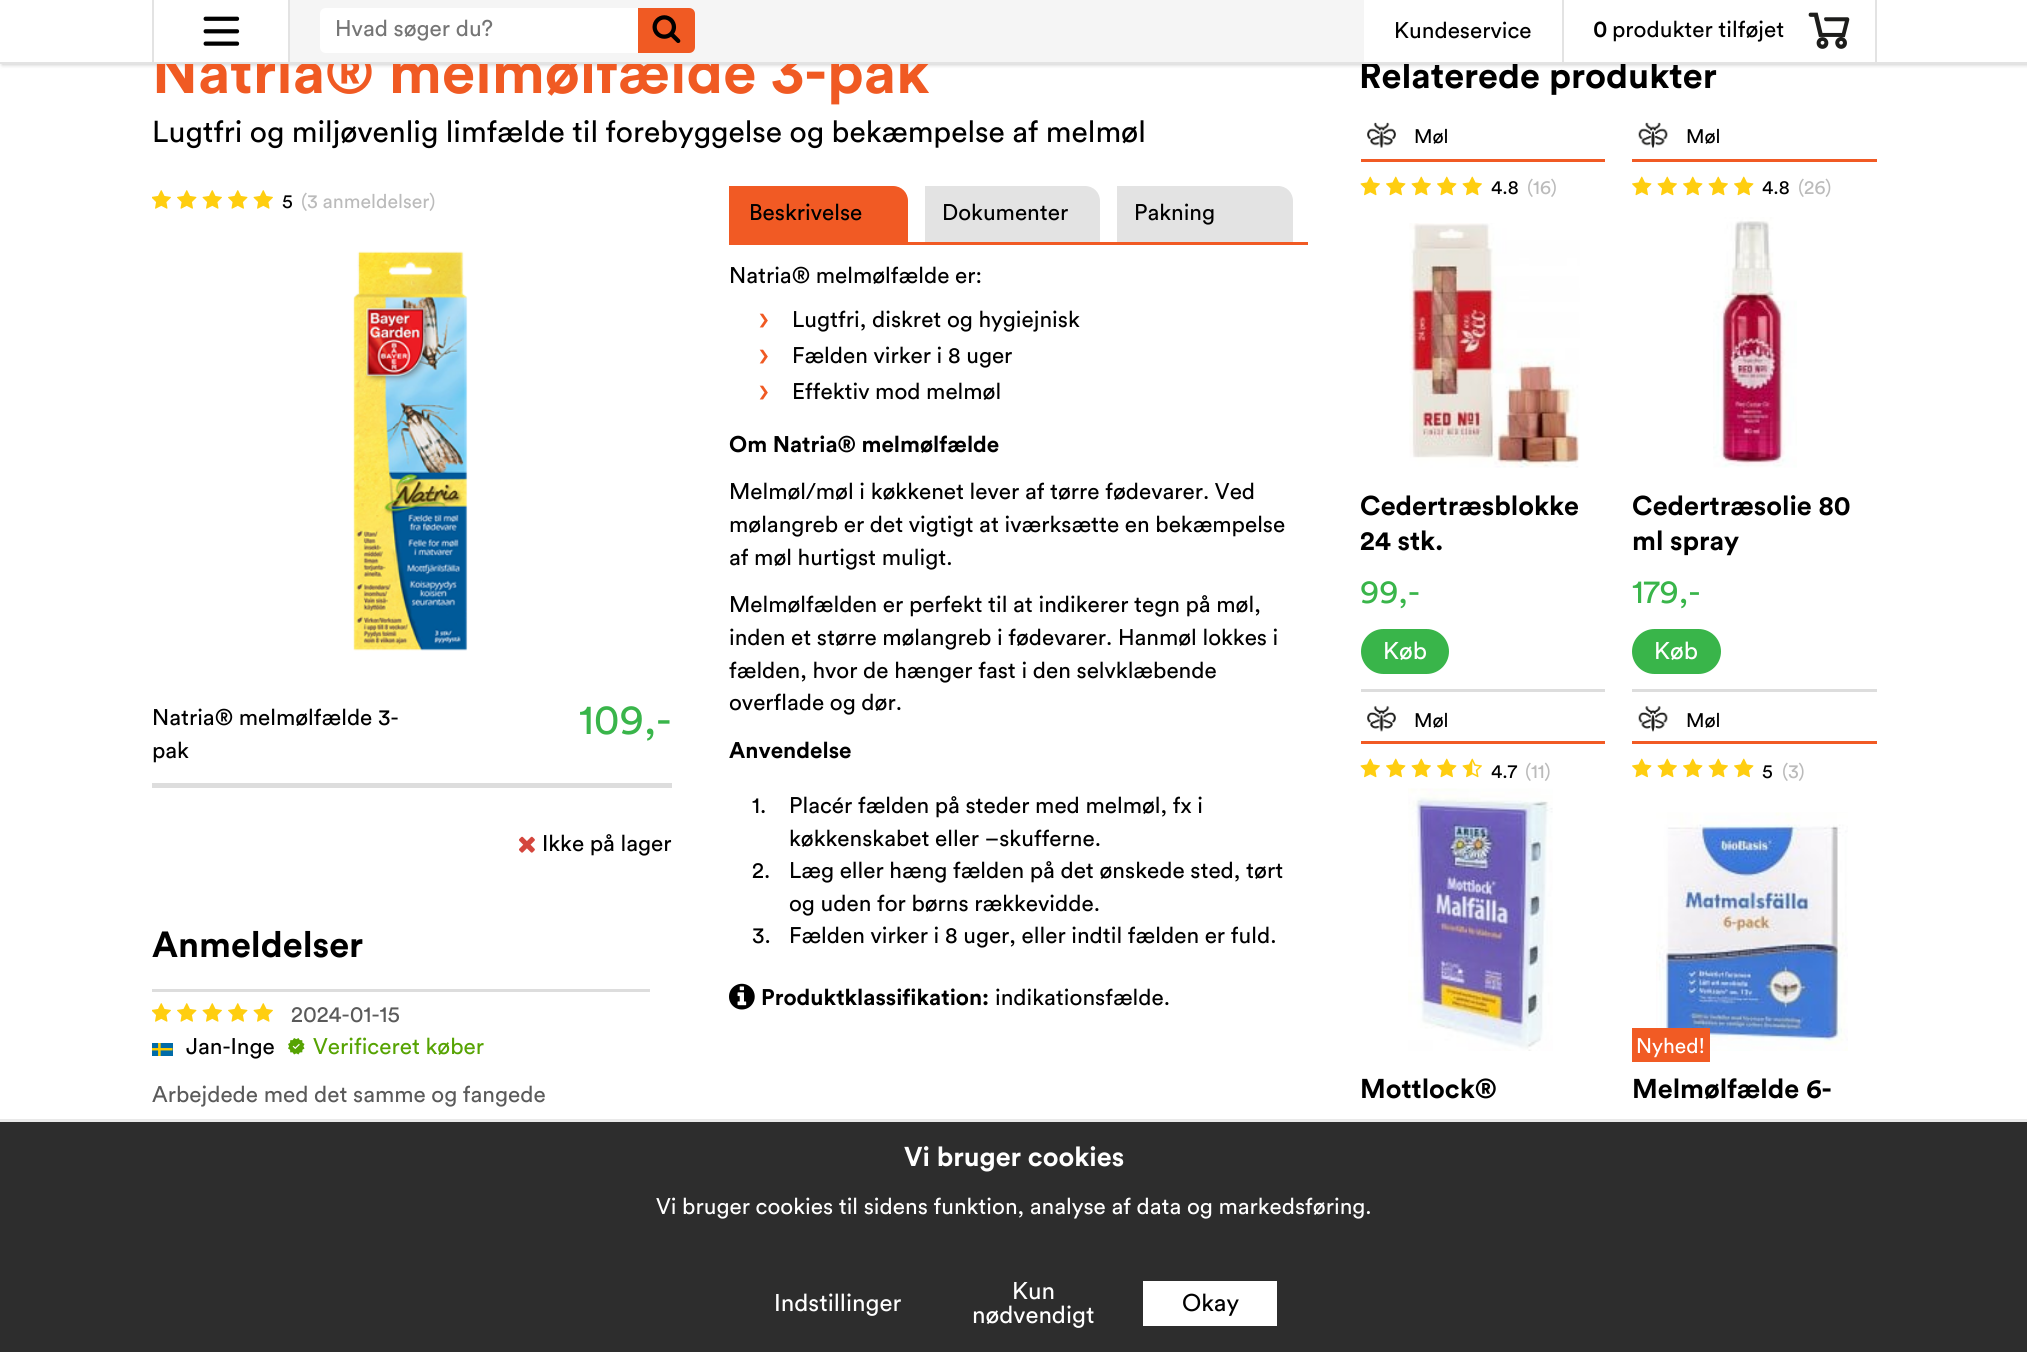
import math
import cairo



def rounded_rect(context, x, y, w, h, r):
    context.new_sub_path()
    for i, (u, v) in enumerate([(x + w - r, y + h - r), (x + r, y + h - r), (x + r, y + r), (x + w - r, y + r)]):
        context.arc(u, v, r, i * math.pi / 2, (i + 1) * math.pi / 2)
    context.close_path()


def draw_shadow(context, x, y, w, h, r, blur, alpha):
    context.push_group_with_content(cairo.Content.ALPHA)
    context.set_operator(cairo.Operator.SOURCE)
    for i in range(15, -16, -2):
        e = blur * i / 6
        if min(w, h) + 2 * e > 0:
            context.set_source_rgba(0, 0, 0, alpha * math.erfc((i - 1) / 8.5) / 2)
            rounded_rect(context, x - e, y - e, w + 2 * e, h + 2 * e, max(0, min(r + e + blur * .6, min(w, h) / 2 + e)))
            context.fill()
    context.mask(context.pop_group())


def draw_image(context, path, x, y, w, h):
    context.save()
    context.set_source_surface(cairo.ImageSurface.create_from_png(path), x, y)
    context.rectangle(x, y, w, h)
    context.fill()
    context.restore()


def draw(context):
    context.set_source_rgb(1, 1, 1)
    context.paint()
    context.set_source_rgb(0, 0, 0)
    draw_shadow(context, 2, 2, 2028, 63, 0, 2, 0.2)
    draw_image(context, "images/4.png", 152, 190, 19, 19)
    draw_image(context, "images/5.png", 177, 190, 20, 19)
    draw_image(context, "images/6.png", 202, 190, 20, 19)
    draw_image(context, "images/5.png", 228, 190, 20, 19)
    draw_image(context, "images/6.png", 253, 190, 20, 19)
    draw_image(context, "images/7.png", 353, 251, 115, 400)
    context.set_source_rgb(221 / 255, 221 / 255, 221 / 255)
    context.rectangle(152, 783, 520, 5)
    context.fill()
    draw_image(context, "images/8.png", 519, 836, 16, 17)
    context.set_source_rgb(241 / 255, 90 / 255, 36 / 255)
    context.rectangle(729, 242, 579, 3)
    context.fill()
    context.new_path()
    context.move_to(729, 186)
    context.line_to(893, 186)
    context.curve_to(901.5, 186, 908, 192.5, 908, 201)
    context.line_to(908, 242)
    context.line_to(729, 242)
    context.close_path()
    context.fill()
    context.set_source_rgb(227 / 255, 227 / 255, 227 / 255)
    context.new_path()
    context.move_to(923, 186)
    context.line_to(1085, 186)
    context.curve_to(1093.5, 186, 1100, 192.5, 1100, 201)
    context.line_to(1100, 242)
    context.line_to(923, 242)
    context.close_path()
    context.fill()
    context.set_source_rgb(1, 1, 1)
    context.rectangle(923, 186, 2, 56)
    context.fill()
    context.set_source_rgb(227 / 255, 227 / 255, 227 / 255)
    context.new_path()
    context.move_to(1115, 186)
    context.line_to(1278, 186)
    context.curve_to(1286.5, 186, 1293, 192.5, 1293, 201)
    context.line_to(1293, 242)
    context.line_to(1115, 242)
    context.close_path()
    context.fill()
    context.set_source_rgb(1, 1, 1)
    context.rectangle(1115, 186, 2, 56)
    context.fill()
    draw_image(context, "images/9.png", 729, 983, 26, 27)
    context.set_source_rgb(221 / 255, 221 / 255, 221 / 255)
    context.rectangle(152, 989, 498, 3)
    context.fill()
    draw_image(context, "images/4.png", 152, 1003, 19, 19)
    draw_image(context, "images/5.png", 177, 1003, 20, 19)
    draw_image(context, "images/6.png", 202, 1003, 20, 19)
    draw_image(context, "images/5.png", 228, 1003, 20, 19)
    draw_image(context, "images/6.png", 253, 1003, 20, 19)
    draw_image(context, "images/10.png", 152, 1043, 21, 13)
    draw_image(context, "images/11.png", 288, 1038, 17, 17)
    context.rectangle(1361, 689, 244, 3)
    context.fill()
    context.set_source_rgb(241 / 255, 90 / 255, 36 / 255)
    context.rectangle(1361, 159, 244, 3)
    context.fill()
    draw_image(context, "images/12.png", 1367, 122, 29, 26)
    draw_image(context, "images/13.png", 1360, 176, 20, 20)
    draw_image(context, "images/14.png", 1386, 176, 20, 20)
    draw_image(context, "images/13.png", 1411, 176, 20, 20)
    draw_image(context, "images/14.png", 1437, 176, 20, 20)
    draw_image(context, "images/13.png", 1462, 176, 20, 20)
    draw_image(context, "images/15.png", 1409, 223, 171, 245)
    context.set_source_rgb(57 / 255, 181 / 255, 74 / 255)
    rounded_rect(context, 1361, 629, 88, 45, 22.5)
    context.fill()
    context.set_source_rgb(221 / 255, 221 / 255, 221 / 255)
    context.rectangle(1632, 689, 245, 3)
    context.fill()
    context.set_source_rgb(241 / 255, 90 / 255, 36 / 255)
    context.rectangle(1632, 159, 245, 3)
    context.fill()
    draw_image(context, "images/16.png", 1638, 122, 30, 26)
    draw_image(context, "images/14.png", 1632, 176, 20, 20)
    draw_image(context, "images/13.png", 1657, 176, 20, 20)
    draw_image(context, "images/14.png", 1683, 176, 20, 20)
    draw_image(context, "images/13.png", 1708, 176, 20, 20)
    draw_image(context, "images/14.png", 1734, 176, 20, 20)
    draw_image(context, "images/17.png", 1713, 217, 84, 251)
    context.set_source_rgb(57 / 255, 181 / 255, 74 / 255)
    rounded_rect(context, 1632, 629, 89, 45, 22.5)
    context.fill()
    context.set_source_rgb(241 / 255, 90 / 255, 36 / 255)
    context.rectangle(1361, 741, 244, 3)
    context.fill()
    draw_image(context, "images/18.png", 1367, 705, 29, 27)
    draw_image(context, "images/13.png", 1360, 758, 20, 20)
    draw_image(context, "images/14.png", 1386, 758, 20, 20)
    draw_image(context, "images/13.png", 1411, 758, 20, 20)
    draw_image(context, "images/14.png", 1437, 758, 20, 20)
    draw_image(context, "images/19.png", 1462, 758, 20, 20)
    draw_image(context, "images/20.png", 1408, 788, 145, 263)
    context.rectangle(1632, 741, 245, 3)
    context.fill()
    draw_image(context, "images/21.png", 1638, 706, 30, 26)
    draw_image(context, "images/14.png", 1632, 758, 20, 20)
    draw_image(context, "images/13.png", 1657, 758, 20, 20)
    draw_image(context, "images/14.png", 1683, 758, 20, 20)
    draw_image(context, "images/13.png", 1708, 758, 20, 20)
    draw_image(context, "images/14.png", 1734, 758, 20, 20)
    draw_image(context, "images/22.png", 1656, 812, 192, 239)
    context.set_source_rgb(241 / 255, 91 / 255, 36 / 255)
    context.rectangle(1632, 1028, 78, 34)
    context.fill()
    context.set_source_rgb(45 / 255, 45 / 255, 45 / 255)
    context.rectangle(0, 1122, 2027, 230)
    context.fill()
    context.set_source_rgb(233 / 255, 233 / 255, 233 / 255)
    context.rectangle(0, 1119, 2027, 3)
    context.fill()
    context.set_source_rgb(1, 1, 1)
    context.rectangle(1143, 1281, 134, 45)
    context.fill()
    context.select_font_face("Circular", cairo.FontSlant.NORMAL, cairo.FontWeight.BOLD)
    context.set_font_size(60)
    context.set_source_rgb(240 / 255, 90 / 255, 35 / 255)
    context.move_to(152, 93)
    context.show_text("Natria® melmølfælde 3-pak")
    context.select_font_face("Circular")
    context.set_font_size(30)
    context.set_source_rgb(0, 0, 0)
    context.move_to(152, 142)
    context.show_text("Lugtfri og miljøvenlig limfælde til forebyggelse og bekæmpelse af melmøl")
    context.set_font_size(19.5)
    context.move_to(282, 208)
    context.show_text("5")
    context.set_source_rgb(187 / 255, 187 / 255, 187 / 255)
    context.move_to(301, 208)
    context.show_text("(3 anmeldelser)")
    context.set_font_size(22.5)
    context.set_source_rgb(0, 0, 0)
    context.move_to(152, 725)
    context.show_text("Natria® melmølfælde 3-")
    context.move_to(152, 758)
    context.show_text("pak")
    context.set_font_size(42)
    context.set_source_rgb(57 / 255, 181 / 255, 74 / 255)
    context.move_to(579, 734)
    context.show_text("109,-")
    context.set_font_size(22.5)
    context.set_source_rgb(0, 0, 0)
    context.move_to(542, 851)
    context.show_text("Ikke på lager")
    context.move_to(749, 220)
    context.show_text("Beskrivelse")
    context.move_to(942, 220)
    context.show_text("Dokumenter")
    context.move_to(1134, 220)
    context.show_text("Pakning")
    context.move_to(729, 283)
    context.show_text("Natria® melmølfælde er:")
    context.set_font_size(36)
    context.set_source_rgb(240 / 255, 90 / 255, 35 / 255)
    context.move_to(759, 331)
    context.show_text("›")
    context.set_font_size(22.5)
    context.set_source_rgb(0, 0, 0)
    context.move_to(792, 327)
    context.show_text("Lugtfri, diskret og hygiejnisk")
    context.set_font_size(36)
    context.set_source_rgb(240 / 255, 90 / 255, 35 / 255)
    context.move_to(759, 367)
    context.show_text("›")
    context.set_font_size(22.5)
    context.set_source_rgb(0, 0, 0)
    context.move_to(792, 363)
    context.show_text("Fælden virker i 8 uger")
    context.set_font_size(36)
    context.set_source_rgb(240 / 255, 90 / 255, 35 / 255)
    context.move_to(759, 403)
    context.show_text("›")
    context.set_font_size(22.5)
    context.set_source_rgb(0, 0, 0)
    context.move_to(792, 399)
    context.show_text("Effektiv mod melmøl")
    context.select_font_face("Circular", cairo.FontSlant.NORMAL, cairo.FontWeight.BOLD)
    context.move_to(729, 452)
    context.show_text("Om Natria® melmølfælde")
    context.select_font_face("Circular")
    context.move_to(729, 499)
    context.show_text("Melmøl/møl i køkkenet lever af tørre fødevarer. Ved")
    context.move_to(729, 532)
    context.show_text("mølangreb er det vigtigt at iværksætte en bekæmpelse")
    context.move_to(729, 565)
    context.show_text("af møl hurtigst muligt.")
    context.move_to(729, 612)
    context.show_text("Melmølfælden er perfekt til at indikerer tegn på møl,")
    context.move_to(729, 645)
    context.show_text("inden et større mølangreb i fødevarer. Hanmøl lokkes i")
    context.move_to(729, 678)
    context.show_text("fælden, hvor de hænger fast i den selvklæbende")
    context.move_to(729, 710)
    context.show_text("overflade og dør.")
    context.select_font_face("Circular", cairo.FontSlant.NORMAL, cairo.FontWeight.BOLD)
    context.move_to(729, 758)
    context.show_text("Anvendelse")
    context.select_font_face("Circular")
    context.move_to(752, 813)
    context.show_text("1.")
    context.move_to(789, 813)
    context.show_text("Placér fælden på steder med melmøl, fx i")
    context.move_to(789, 846)
    context.show_text("køkkenskabet eller –skufferne.")
    context.move_to(752, 878)
    context.show_text("2.")
    context.move_to(789, 878)
    context.show_text("Læg eller hæng fælden på det ønskede sted, tørt")
    context.move_to(789, 911)
    context.show_text("og uden for børns rækkevidde.")
    context.move_to(752, 943)
    context.show_text("3.")
    context.move_to(789, 943)
    context.show_text("Fælden virker i 8 uger, eller indtil fælden er fuld.")
    context.select_font_face("Circular", cairo.FontSlant.NORMAL, cairo.FontWeight.BOLD)
    context.move_to(761, 1005)
    context.show_text("Produktklassifikation:")
    context.select_font_face("Circular")
    context.move_to(995, 1005)
    context.show_text("indikationsfælde.")
    context.select_font_face("Circular", cairo.FontSlant.NORMAL, cairo.FontWeight.BOLD)
    context.set_font_size(36)
    context.move_to(152, 957)
    context.show_text("Anmeldelser")
    context.select_font_face("Circular")
    context.set_font_size(22.5)
    context.set_source_rgb(90 / 255, 90 / 255, 90 / 255)
    context.move_to(291, 1022)
    context.show_text("2024-01-15")
    context.set_source_rgb(0, 0, 0)
    context.move_to(186, 1054)
    context.show_text("Jan-Inge")
    context.set_source_rgb(86 / 255, 163 / 255, 2 / 255)
    context.move_to(313, 1054)
    context.show_text("Verificeret køber")
    context.set_source_rgb(90 / 255, 90 / 255, 90 / 255)
    context.move_to(152, 1102)
    context.show_text("Arbejdede med det samme og fangede")
    context.select_font_face("Circular", cairo.FontSlant.NORMAL, cairo.FontWeight.BOLD)
    context.set_font_size(36)
    context.set_source_rgb(0, 0, 0)
    context.move_to(1359, 88)
    context.show_text("Relaterede produkter")
    context.set_source_rgb(1, 1, 1)
    context.rectangle(0, 0, 2027, 62)
    context.fill()
    draw_image(context, "images/3.png", 1808, 12, 42, 37)
    context.select_font_face("Circular")
    context.set_font_size(22.5)
    context.set_source_rgb(0, 0, 0)
    context.move_to(1612, 37)
    context.show_text("produkter tilføjet")
    context.select_font_face("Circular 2", cairo.FontSlant.NORMAL, cairo.FontWeight.BOLD)
    context.move_to(1593, 37)
    context.show_text("0")
    context.set_source_rgb(245 / 255, 245 / 255, 245 / 255)
    context.rectangle(290, 0, 1074, 62)
    context.fill()
    context.set_source_rgb(240 / 255, 90 / 255, 35 / 255)
    context.new_path()
    context.move_to(638, 8)
    context.line_to(689, 8)
    context.curve_to(692.5, 8, 695, 10.5, 695, 14)
    context.line_to(695, 47)
    context.curve_to(695, 50.5, 692.5, 53, 689, 53)
    context.line_to(638, 53)
    context.close_path()
    context.fill()
    draw_image(context, "images/2.png", 652, 15, 29, 28)
    context.set_source_rgb(1, 1, 1)
    context.new_path()
    context.move_to(326, 8)
    context.line_to(638, 8)
    context.line_to(638, 53)
    context.line_to(326, 53)
    context.curve_to(322.5, 53, 320, 50.5, 320, 47)
    context.line_to(320, 14)
    context.curve_to(320, 10.5, 322.5, 8, 326, 8)
    context.close_path()
    context.fill()
    context.select_font_face("Circular")
    context.set_source_rgb(117 / 255, 117 / 255, 117 / 255)
    context.move_to(335, 36)
    context.show_text("Hvad søger du?")
    draw_image(context, "images/1.png", 203, 16, 37, 30)
    context.set_source_rgb(227 / 255, 227 / 255, 227 / 255)
    context.rectangle(288, 0, 2, 62)
    context.fill()
    context.set_source_rgb(0, 0, 0)
    context.move_to(1394, 38)
    context.show_text("Kundeservice")
    context.set_source_rgb(227 / 255, 227 / 255, 227 / 255)
    context.rectangle(1562, 0, 2, 62)
    context.fill()
    context.rectangle(1875, 0, 2, 62)
    context.fill()
    context.rectangle(152, 0, 2, 62)
    context.fill()
    context.rectangle(0, 62, 2027, 2)
    context.fill()
    context.set_font_size(19.5)
    context.set_source_rgb(0, 0, 0)
    context.move_to(1414, 143)
    context.show_text("Møl")
    context.move_to(1491, 194)
    context.show_text("4.8")
    context.set_source_rgb(187 / 255, 187 / 255, 187 / 255)
    context.move_to(1527, 194)
    context.show_text("(16)")
    context.select_font_face("Circular", cairo.FontSlant.NORMAL, cairo.FontWeight.BOLD)
    context.set_font_size(27)
    context.set_source_rgb(0, 0, 0)
    context.move_to(1360, 515)
    context.show_text("Cedertræsblokke")
    context.move_to(1360, 550)
    context.show_text("24 stk.")
    context.select_font_face("Circular")
    context.set_font_size(33)
    context.set_source_rgb(57 / 255, 181 / 255, 74 / 255)
    context.move_to(1360, 603)
    context.show_text("99,-")
    context.set_font_size(24)
    context.set_source_rgb(1, 1, 1)
    context.move_to(1383, 659)
    context.show_text("Køb")
    context.set_font_size(19.5)
    context.set_source_rgb(0, 0, 0)
    context.move_to(1686, 143)
    context.show_text("Møl")
    context.move_to(1762, 194)
    context.show_text("4.8")
    context.set_source_rgb(187 / 255, 187 / 255, 187 / 255)
    context.move_to(1798, 194)
    context.show_text("(26)")
    context.select_font_face("Circular", cairo.FontSlant.NORMAL, cairo.FontWeight.BOLD)
    context.set_font_size(27)
    context.set_source_rgb(0, 0, 0)
    context.move_to(1632, 515)
    context.show_text("Cedertræsolie 80")
    context.move_to(1632, 550)
    context.show_text("ml spray")
    context.select_font_face("Circular")
    context.set_font_size(33)
    context.set_source_rgb(57 / 255, 181 / 255, 74 / 255)
    context.move_to(1632, 603)
    context.show_text("179,-")
    context.set_font_size(24)
    context.set_source_rgb(1, 1, 1)
    context.move_to(1654, 659)
    context.show_text("Køb")
    context.set_font_size(19.5)
    context.set_source_rgb(0, 0, 0)
    context.move_to(1414, 727)
    context.show_text("Møl")
    context.move_to(1491, 778)
    context.show_text("4.7")
    context.set_source_rgb(187 / 255, 187 / 255, 187 / 255)
    context.move_to(1525, 778)
    context.show_text("(11)")
    context.select_font_face("Circular", cairo.FontSlant.NORMAL, cairo.FontWeight.BOLD)
    context.set_font_size(27)
    context.set_source_rgb(0, 0, 0)
    context.move_to(1360, 1098)
    context.show_text("Mottlock®")
    context.select_font_face("Circular")
    context.set_font_size(19.5)
    context.move_to(1686, 727)
    context.show_text("Møl")
    context.move_to(1762, 778)
    context.show_text("5")
    context.set_source_rgb(187 / 255, 187 / 255, 187 / 255)
    context.move_to(1782, 778)
    context.show_text("(3)")
    context.set_font_size(21)
    context.set_source_rgb(1, 1, 1)
    context.move_to(1636, 1053)
    context.show_text("Nyhed!")
    context.select_font_face("Circular", cairo.FontSlant.NORMAL, cairo.FontWeight.BOLD)
    context.set_font_size(27)
    context.set_source_rgb(0, 0, 0)
    context.move_to(1632, 1098)
    context.show_text("Melmølfælde 6-")
    context.set_source_rgb(1, 1, 1)
    context.move_to(904, 1166)
    context.show_text("Vi bruger cookies")
    context.select_font_face("Circular")
    context.set_font_size(22.5)
    context.move_to(656, 1214)
    context.show_text("Vi bruger cookies til sidens funktion, analyse af data og markedsføring.")
    context.set_font_size(24)
    context.move_to(774, 1311)
    context.show_text("Indstillinger")
    context.move_to(1012, 1299)
    context.show_text("Kun")
    context.move_to(972, 1323)
    context.show_text("nødvendigt")
    context.set_source_rgb(0, 0, 0)
    context.move_to(1182, 1311)
    context.show_text("Okay")


surface = cairo.ImageSurface(cairo.Format.RGB24, 2027, 1352)
context = cairo.Context(surface)
options = cairo.FontOptions()
options.set_hint_metrics(cairo.HintMetrics.OFF)
options.set_hint_style(cairo.HintStyle.NONE)
context.set_font_options(options)
context.set_miter_limit(4)
draw(context)
surface.write_to_png("out.png")
